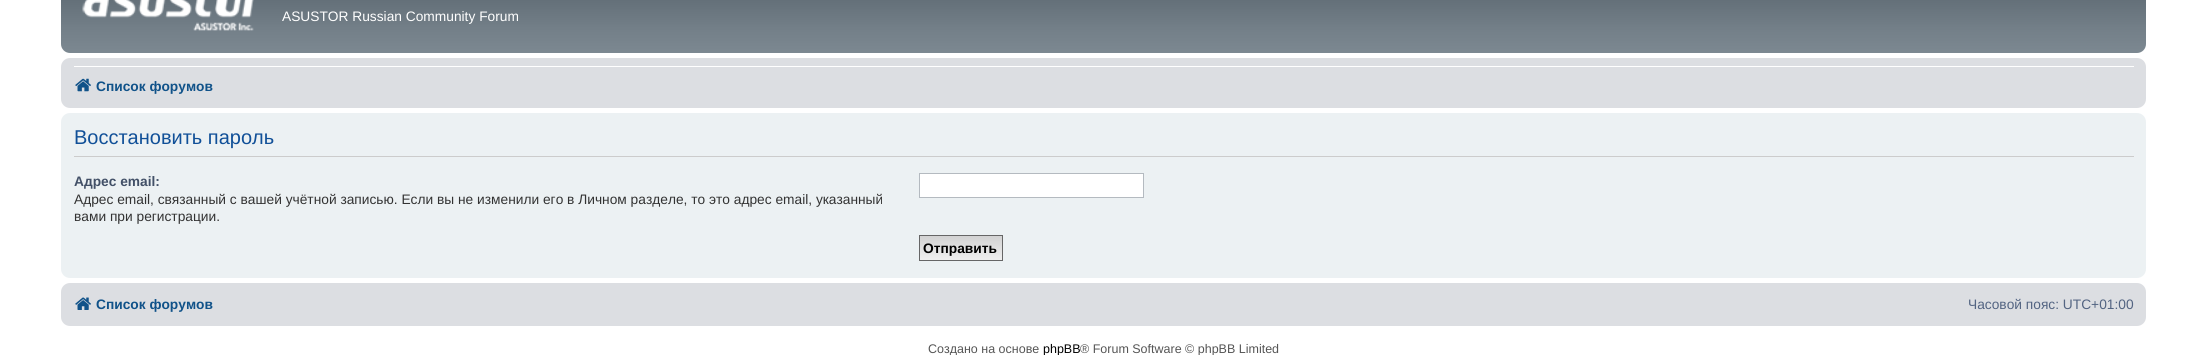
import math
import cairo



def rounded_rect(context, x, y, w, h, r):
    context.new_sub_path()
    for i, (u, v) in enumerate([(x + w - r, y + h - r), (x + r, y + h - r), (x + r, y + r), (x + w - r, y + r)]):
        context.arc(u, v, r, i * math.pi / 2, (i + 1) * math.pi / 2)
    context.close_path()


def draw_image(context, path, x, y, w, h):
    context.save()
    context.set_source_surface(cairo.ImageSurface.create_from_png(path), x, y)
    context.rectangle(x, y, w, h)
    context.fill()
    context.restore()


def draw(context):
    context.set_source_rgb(1, 1, 1)
    context.paint()
    gradient = cairo.LinearGradient(1104, -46, 1104, 53)
    gradient.add_color_stop_rgba(0, 110 / 255, 119 / 255, 127 / 255, 1)
    gradient.add_color_stop_rgba(0.01, 80 / 255, 92 / 255, 101 / 255, 1)
    gradient.add_color_stop_rgba(0.2, 86 / 255, 98 / 255, 107 / 255, 1)
    gradient.add_color_stop_rgba(0.75, 115 / 255, 127 / 255, 136 / 255, 1)
    gradient.add_color_stop_rgba(1, 124 / 255, 136 / 255, 145 / 255, 1)
    context.set_source(gradient)
    rounded_rect(context, 61, -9, 2085, 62, 9)
    context.fill()
    draw_image(context, "images/1.png", 82, 0, 172, 31)
    context.set_source_rgb(220 / 255, 222 / 255, 226 / 255)
    rounded_rect(context, 61, 58, 2085, 50, 9)
    context.fill()
    context.set_source_rgb(1, 1, 1)
    context.rectangle(74, 66, 2060, 1)
    context.fill()
    draw_image(context, "images/2.png", 75, 78, 16, 14)
    context.set_source_rgb(236 / 255, 241 / 255, 243 / 255)
    rounded_rect(context, 61, 113, 2085, 165, 9)
    context.fill()
    context.set_source_rgb(204 / 255, 204 / 255, 204 / 255)
    context.rectangle(74, 156, 2060, 1)
    context.fill()
    context.set_source_rgb(1, 1, 1)
    context.rectangle(919.5, 173.5, 224, 24)
    context.fill_preserve()
    context.set_source_rgb(180 / 255, 186 / 255, 192 / 255)
    context.set_line_width(1)
    context.stroke()
    gradient = cairo.LinearGradient(961, 236, 961, 260)
    gradient.add_color_stop_rgba(0, 210 / 255, 210 / 255, 210 / 255, 1)
    gradient.add_color_stop_rgba(1, 239 / 255, 239 / 255, 239 / 255, 1)
    context.set_source(gradient)
    context.rectangle(920, 236, 82, 24)
    context.fill()
    context.rectangle(919.5, 235.5, 83, 25)
    context.set_source_rgb(102 / 255, 102 / 255, 102 / 255)
    context.stroke()
    context.set_source_rgb(220 / 255, 222 / 255, 226 / 255)
    rounded_rect(context, 61, 283, 2085, 43, 9)
    context.fill()
    draw_image(context, "images/3.png", 75, 297, 16, 13)
    context.select_font_face("Liberation Sans")
    context.set_font_size(13.75)
    context.set_source_rgb(1, 1, 1)
    context.move_to(282, 21)
    context.show_text("ASUSTOR Russian Community Forum")
    context.select_font_face("Liberation Sans", cairo.FontSlant.NORMAL, cairo.FontWeight.BOLD)
    context.set_source_rgb(16 / 255, 82 / 255, 137 / 255)
    context.move_to(96, 91)
    context.show_text("Список форумов")
    context.select_font_face("Liberation Sans")
    context.set_font_size(20)
    context.set_source_rgb(17 / 255, 80 / 255, 152 / 255)
    context.move_to(74, 144)
    context.show_text("Восстановить пароль")
    context.select_font_face("Liberation Sans", cairo.FontSlant.NORMAL, cairo.FontWeight.BOLD)
    context.set_font_size(13.75)
    context.set_source_rgb(66 / 255, 80 / 255, 103 / 255)
    context.move_to(74, 186)
    context.show_text("Адрес email:")
    context.select_font_face("Liberation Sans")
    context.set_source_rgb(51 / 255, 51 / 255, 51 / 255)
    context.move_to(74, 204)
    context.show_text("Адрес email, связанный с вашей учётной записью. Если вы не изменили его в Личном разделе, то это адрес email, указанный")
    context.move_to(74, 221)
    context.show_text("вами при регистрации.")
    context.select_font_face("Liberation Sans", cairo.FontSlant.NORMAL, cairo.FontWeight.BOLD)
    context.set_source_rgb(0, 0, 0)
    context.move_to(923, 253)
    context.show_text("Отправить")
    context.set_source_rgb(16 / 255, 82 / 255, 137 / 255)
    context.move_to(96, 309)
    context.show_text("Список форумов")
    context.select_font_face("Liberation Sans")
    context.set_source_rgb(83 / 255, 100 / 255, 130 / 255)
    context.move_to(1968, 309)
    context.show_text("Часовой пояс: UTC+01:00")
    context.set_font_size(12.5)
    context.set_source_rgb(85 / 255, 85 / 255, 85 / 255)
    context.move_to(928, 353)
    context.show_text("Создано на основе")
    context.set_source_rgb(0, 0, 0)
    context.move_to(1043, 353)
    context.show_text("phpBB")
    context.set_source_rgb(85 / 255, 85 / 255, 85 / 255)
    context.move_to(1080, 353)
    context.show_text("® Forum Software © phpBB Limited")


surface = cairo.ImageSurface(cairo.Format.RGB24, 2207, 355)
context = cairo.Context(surface)
options = cairo.FontOptions()
options.set_hint_metrics(cairo.HintMetrics.OFF)
options.set_hint_style(cairo.HintStyle.NONE)
context.set_font_options(options)
context.set_miter_limit(4)
draw(context)
surface.write_to_png("out.png")
